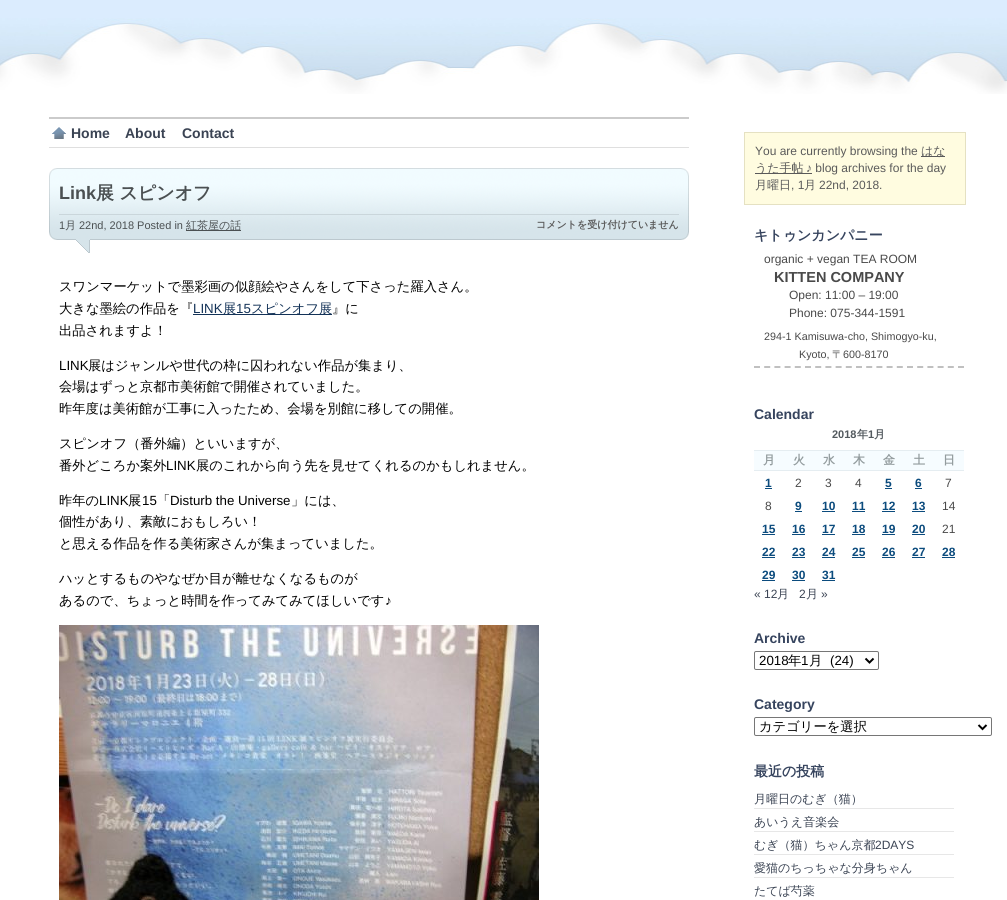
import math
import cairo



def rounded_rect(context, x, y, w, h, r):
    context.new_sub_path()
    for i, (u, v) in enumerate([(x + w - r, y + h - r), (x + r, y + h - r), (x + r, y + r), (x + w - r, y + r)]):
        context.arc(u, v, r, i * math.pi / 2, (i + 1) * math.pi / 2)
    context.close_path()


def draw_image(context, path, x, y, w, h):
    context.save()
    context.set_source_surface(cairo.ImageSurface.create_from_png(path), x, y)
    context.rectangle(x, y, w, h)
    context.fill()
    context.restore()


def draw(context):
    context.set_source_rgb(1, 1, 1)
    context.paint()
    draw_image(context, "images/1.png", 0, 0, 1007, 94)
    context.set_source_rgb(203 / 255, 203 / 255, 203 / 255)
    context.rectangle(49, 117, 640, 2)
    context.fill()
    context.set_source_rgb(223 / 255, 223 / 255, 223 / 255)
    context.rectangle(49, 147, 640, 1)
    context.fill()
    draw_image(context, "images/2.png", 52, 127, 14, 12)
    draw_image(context, "images/3.png", 49, 176, 640, 77)
    draw_image(context, "images/4.png", 49, 168, 640, 8)
    context.set_source_rgb(202 / 255, 214 / 255, 219 / 255)
    context.rectangle(59, 214, 620, 1)
    context.fill()
    context.set_source_rgb(75 / 255, 80 / 255, 82 / 255)
    context.rectangle(186, 230, 55, 1)
    context.fill()
    context.set_source_rgb(19 / 255, 50 / 255, 87 / 255)
    context.rectangle(193, 314, 139, 1)
    context.fill()
    draw_image(context, "images/5.png", 59, 625, 480, 275)
    context.set_source_rgb(1, 252 / 255, 224 / 255)
    context.rectangle(744.5, 132.5, 221, 72)
    context.fill_preserve()
    context.set_source_rgb(229 / 255, 225 / 255, 194 / 255)
    context.set_line_width(1)
    context.stroke()
    context.set_source_rgb(89 / 255, 89 / 255, 89 / 255)
    context.rectangle(921, 156, 24, 1)
    context.fill()
    context.rectangle(755, 173, 57, 1)
    context.fill()
    context.new_path()
    context.move_to(754, 367)
    context.line_to(964, 367)
    context.set_source_rgb(192 / 255, 192 / 255, 192 / 255)
    context.set_line_width(2)
    context.set_dash([6, 4.2])
    context.stroke()
    context.set_source_rgb(246 / 255, 252 / 255, 1)
    context.rectangle(754, 451, 210, 19)
    context.fill()
    context.set_source_rgb(229 / 255, 237 / 255, 241 / 255)
    context.rectangle(754, 450, 210, 1)
    context.fill()
    context.rectangle(754, 470, 210, 1)
    context.fill()
    context.set_source_rgb(11 / 255, 75 / 255, 125 / 255)
    context.rectangle(765, 488, 7, 1)
    context.fill()
    context.rectangle(885, 488, 7, 1)
    context.fill()
    context.rectangle(915, 488, 7, 1)
    context.fill()
    context.rectangle(795, 511, 7, 1)
    context.fill()
    context.rectangle(822, 511, 13, 1)
    context.fill()
    context.rectangle(852, 511, 13, 1)
    context.fill()
    context.rectangle(882, 511, 13, 1)
    context.fill()
    context.rectangle(912, 511, 13, 1)
    context.fill()
    context.rectangle(762, 534, 13, 1)
    context.fill()
    context.rectangle(792, 534, 13, 1)
    context.fill()
    context.rectangle(822, 534, 13, 1)
    context.fill()
    context.rectangle(852, 534, 13, 1)
    context.fill()
    context.rectangle(882, 534, 13, 1)
    context.fill()
    context.rectangle(912, 534, 13, 1)
    context.fill()
    context.rectangle(762, 557, 13, 1)
    context.fill()
    context.rectangle(792, 557, 13, 1)
    context.fill()
    context.rectangle(822, 557, 13, 1)
    context.fill()
    context.rectangle(852, 557, 13, 1)
    context.fill()
    context.rectangle(882, 557, 13, 1)
    context.fill()
    context.rectangle(912, 557, 13, 1)
    context.fill()
    context.rectangle(942, 557, 13, 1)
    context.fill()
    context.rectangle(762, 580, 13, 1)
    context.fill()
    context.rectangle(792, 580, 13, 1)
    context.fill()
    context.rectangle(822, 580, 13, 1)
    context.fill()
    rounded_rect(context, 754.5, 651.5, 124, 18, 1.5)
    context.set_source_rgb(118 / 255, 118 / 255, 118 / 255)
    context.set_line_width(1)
    context.set_dash([])
    context.stroke()
    context.new_path()
    context.move_to(865.5, 658.5)
    context.line_to(869.5, 662.5)
    context.line_to(873.5, 658.5)
    context.set_source_rgb(0, 0, 0)
    context.set_line_width(2)
    context.stroke()
    rounded_rect(context, 754.5, 717.5, 237, 18, 1.5)
    context.set_source_rgb(118 / 255, 118 / 255, 118 / 255)
    context.set_line_width(1)
    context.stroke()
    context.new_path()
    context.move_to(978.5, 725)
    context.line_to(982.5, 729)
    context.line_to(986.5, 725)
    context.set_source_rgb(0, 0, 0)
    context.set_line_width(2)
    context.stroke()
    context.set_source_rgb(231 / 255, 231 / 255, 231 / 255)
    context.rectangle(754, 808, 200, 1)
    context.fill()
    context.rectangle(754, 831, 200, 1)
    context.fill()
    context.rectangle(754, 854, 200, 1)
    context.fill()
    context.rectangle(754, 877, 200, 1)
    context.fill()
    context.select_font_face("Liberation Sans", cairo.FontSlant.NORMAL, cairo.FontWeight.BOLD)
    context.set_font_size(14)
    context.set_source_rgb(58 / 255, 67 / 255, 83 / 255)
    context.move_to(71, 138)
    context.show_text("Home")
    context.move_to(125, 138)
    context.show_text("About")
    context.move_to(182, 138)
    context.show_text("Contact")
    context.set_font_size(18)
    context.set_source_rgb(75 / 255, 80 / 255, 82 / 255)
    context.move_to(59, 199)
    context.show_text("Link")
    context.select_font_face("WenQuanYi Zen Hei", cairo.FontSlant.NORMAL, cairo.FontWeight.BOLD)
    context.move_to(96, 199)
    context.show_text("展 スピンオフ")
    context.select_font_face("Liberation Sans")
    context.set_font_size(11)
    context.move_to(59, 229)
    context.show_text("1")
    context.select_font_face("WenQuanYi Zen Hei Medium")
    context.move_to(65, 229)
    context.show_text("月")
    context.select_font_face("Liberation Sans")
    context.move_to(79, 229)
    context.show_text("22nd, 2018 Posted in")
    context.select_font_face("WenQuanYi Zen Hei Medium")
    context.move_to(186, 229)
    context.show_text("紅茶屋の話")
    context.select_font_face("WenQuanYi Zen Hei", cairo.FontSlant.NORMAL, cairo.FontWeight.BOLD)
    context.set_font_size(10)
    context.set_source_rgb(90 / 255, 90 / 255, 90 / 255)
    context.move_to(536, 228)
    context.show_text("コメントを受け付けていません")
    context.select_font_face("WenQuanYi Zen Hei Medium")
    context.set_font_size(13.3)
    context.set_source_rgb(0, 0, 0)
    context.move_to(59, 291)
    context.show_text("スワンマーケットで墨彩画の似顔絵やさんをして下さった羅入さん。")
    context.move_to(59, 313)
    context.show_text("大きな墨絵の作品を『")
    context.select_font_face("Liberation Sans")
    context.set_source_rgb(19 / 255, 50 / 255, 87 / 255)
    context.move_to(193, 313)
    context.show_text("LINK")
    context.select_font_face("WenQuanYi Zen Hei Medium")
    context.move_to(223, 313)
    context.show_text("展")
    context.select_font_face("Liberation Sans")
    context.move_to(236, 313)
    context.show_text("15")
    context.select_font_face("WenQuanYi Zen Hei Medium")
    context.move_to(251, 313)
    context.show_text("スピンオフ展")
    context.set_source_rgb(0, 0, 0)
    context.move_to(332, 313)
    context.show_text("』に")
    context.move_to(59, 335)
    context.show_text("出品されますよ！")
    context.select_font_face("Liberation Sans")
    context.move_to(59, 370)
    context.show_text("LINK")
    context.select_font_face("WenQuanYi Zen Hei Medium")
    context.move_to(88, 370)
    context.show_text("展はジャンルや世代の枠に囚われない作品が集まり、")
    context.move_to(59, 391)
    context.show_text("会場はずっと京都市美術館で開催されていました。")
    context.move_to(59, 413)
    context.show_text("昨年度は美術館が工事に入ったため、会場を別館に移しての開催。")
    context.move_to(59, 448)
    context.show_text("スピンオフ（番外編）といいますが、")
    context.move_to(59, 470)
    context.show_text("番外どころか案外")
    context.select_font_face("Liberation Sans")
    context.move_to(166, 470)
    context.show_text("LINK")
    context.select_font_face("WenQuanYi Zen Hei Medium")
    context.move_to(196, 470)
    context.show_text("展のこれから向う先を見せてくれるのかもしれません。")
    context.move_to(59, 505)
    context.show_text("昨年の")
    context.select_font_face("Liberation Sans")
    context.move_to(99, 505)
    context.show_text("LINK")
    context.select_font_face("WenQuanYi Zen Hei Medium")
    context.move_to(128, 505)
    context.show_text("展")
    context.select_font_face("Liberation Sans")
    context.move_to(142, 505)
    context.show_text("15")
    context.select_font_face("WenQuanYi Zen Hei Medium")
    context.move_to(157, 505)
    context.show_text("「")
    context.select_font_face("Liberation Sans")
    context.move_to(170, 505)
    context.show_text("Disturb the Universe")
    context.select_font_face("WenQuanYi Zen Hei Medium")
    context.move_to(291, 505)
    context.show_text("」には、")
    context.move_to(59, 526)
    context.show_text("個性があり、素敵におもしろい！")
    context.move_to(59, 548)
    context.show_text("と思える作品を作る美術家さんが集まっていました。")
    context.move_to(59, 583)
    context.show_text("ハッとするものやなぜか目が離せなくなるものが")
    context.move_to(59, 605)
    context.show_text("あるので、ちょっと時間を作ってみてみてほしいです")
    context.select_font_face("Liberation Sans")
    context.move_to(385, 605)
    context.show_text("♪")
    context.set_font_size(12)
    context.set_source_rgb(90 / 255, 90 / 255, 90 / 255)
    context.move_to(755, 155)
    context.show_text("You are currently browsing the")
    context.select_font_face("WenQuanYi Zen Hei Medium")
    context.move_to(921, 155)
    context.show_text("はな")
    context.move_to(755, 172)
    context.show_text("うた手帖")
    context.select_font_face("Liberation Sans")
    context.move_to(806, 172)
    context.show_text("♪ blog archives for the day")
    context.select_font_face("WenQuanYi Zen Hei Medium")
    context.move_to(755, 189)
    context.show_text("月曜日")
    context.select_font_face("Liberation Sans")
    context.move_to(791, 189)
    context.show_text(", 1")
    context.select_font_face("WenQuanYi Zen Hei Medium")
    context.move_to(804, 189)
    context.show_text("月")
    context.select_font_face("Liberation Sans")
    context.move_to(819, 189)
    context.show_text("22nd, 2018.")
    context.select_font_face("WenQuanYi Zen Hei", cairo.FontSlant.NORMAL, cairo.FontWeight.BOLD)
    context.set_font_size(14)
    context.set_source_rgb(54 / 255, 68 / 255, 94 / 255)
    context.move_to(754, 240)
    context.show_text("キトゥンカンパニー")
    context.select_font_face("Liberation Sans")
    context.set_font_size(12)
    context.set_source_rgb(73 / 255, 73 / 255, 73 / 255)
    context.move_to(764, 263)
    context.show_text("organic + vegan TEA ROOM")
    context.select_font_face("Liberation Sans", cairo.FontSlant.NORMAL, cairo.FontWeight.BOLD)
    context.set_font_size(14.5)
    context.move_to(774, 282)
    context.show_text("KITTEN COMPANY")
    context.select_font_face("Liberation Sans")
    context.set_font_size(12)
    context.move_to(789, 299)
    context.show_text("Open: 11:00 – 19:00")
    context.move_to(789, 317)
    context.show_text("Phone: 075-344-1591")
    context.set_font_size(10.75)
    context.move_to(764, 340)
    context.show_text("294-1 Kamisuwa-cho, Shimogyo-ku,")
    context.move_to(799, 358)
    context.show_text("Kyoto,")
    context.select_font_face("WenQuanYi Zen Hei Medium")
    context.move_to(832, 358)
    context.show_text("〒")
    context.select_font_face("Liberation Sans")
    context.move_to(843, 358)
    context.show_text("600-8170")
    context.select_font_face("Liberation Sans", cairo.FontSlant.NORMAL, cairo.FontWeight.BOLD)
    context.set_font_size(14)
    context.set_source_rgb(54 / 255, 68 / 255, 94 / 255)
    context.move_to(754, 419)
    context.show_text("Calendar")
    context.set_font_size(11)
    context.set_source_rgb(82 / 255, 89 / 255, 94 / 255)
    context.move_to(832, 438)
    context.show_text("2018")
    context.select_font_face("WenQuanYi Zen Hei", cairo.FontSlant.NORMAL, cairo.FontWeight.BOLD)
    context.move_to(857, 438)
    context.show_text("年")
    context.select_font_face("Liberation Sans", cairo.FontSlant.NORMAL, cairo.FontWeight.BOLD)
    context.move_to(868, 438)
    context.show_text("1")
    context.select_font_face("WenQuanYi Zen Hei", cairo.FontSlant.NORMAL, cairo.FontWeight.BOLD)
    context.move_to(874, 438)
    context.show_text("月")
    context.set_font_size(12)
    context.set_source_rgb(147 / 255, 156 / 255, 158 / 255)
    context.move_to(763, 464)
    context.show_text("月")
    context.move_to(793, 464)
    context.show_text("火")
    context.move_to(823, 464)
    context.show_text("水")
    context.move_to(853, 464)
    context.show_text("木")
    context.move_to(883, 464)
    context.show_text("金")
    context.move_to(913, 464)
    context.show_text("土")
    context.move_to(943, 464)
    context.show_text("日")
    context.select_font_face("Liberation Sans", cairo.FontSlant.NORMAL, cairo.FontWeight.BOLD)
    context.set_source_rgb(11 / 255, 75 / 255, 125 / 255)
    context.move_to(765, 487)
    context.show_text("1")
    context.select_font_face("Liberation Sans")
    context.set_source_rgb(73 / 255, 73 / 255, 73 / 255)
    context.move_to(795, 487)
    context.show_text("2")
    context.move_to(825, 487)
    context.show_text("3")
    context.move_to(855, 487)
    context.show_text("4")
    context.select_font_face("Liberation Sans", cairo.FontSlant.NORMAL, cairo.FontWeight.BOLD)
    context.set_source_rgb(11 / 255, 75 / 255, 125 / 255)
    context.move_to(885, 487)
    context.show_text("5")
    context.move_to(915, 487)
    context.show_text("6")
    context.select_font_face("Liberation Sans")
    context.set_source_rgb(73 / 255, 73 / 255, 73 / 255)
    context.move_to(945, 487)
    context.show_text("7")
    context.move_to(765, 510)
    context.show_text("8")
    context.select_font_face("Liberation Sans", cairo.FontSlant.NORMAL, cairo.FontWeight.BOLD)
    context.set_source_rgb(11 / 255, 75 / 255, 125 / 255)
    context.move_to(795, 510)
    context.show_text("9")
    context.move_to(822, 510)
    context.show_text("10")
    context.move_to(852, 510)
    context.show_text("11")
    context.move_to(882, 510)
    context.show_text("12")
    context.move_to(912, 510)
    context.show_text("13")
    context.select_font_face("Liberation Sans")
    context.set_source_rgb(73 / 255, 73 / 255, 73 / 255)
    context.move_to(942, 510)
    context.show_text("14")
    context.select_font_face("Liberation Sans", cairo.FontSlant.NORMAL, cairo.FontWeight.BOLD)
    context.set_source_rgb(11 / 255, 75 / 255, 125 / 255)
    context.move_to(762, 533)
    context.show_text("15")
    context.move_to(792, 533)
    context.show_text("16")
    context.move_to(822, 533)
    context.show_text("17")
    context.move_to(852, 533)
    context.show_text("18")
    context.move_to(882, 533)
    context.show_text("19")
    context.move_to(912, 533)
    context.show_text("20")
    context.select_font_face("Liberation Sans")
    context.set_source_rgb(73 / 255, 73 / 255, 73 / 255)
    context.move_to(942, 533)
    context.show_text("21")
    context.select_font_face("Liberation Sans", cairo.FontSlant.NORMAL, cairo.FontWeight.BOLD)
    context.set_source_rgb(11 / 255, 75 / 255, 125 / 255)
    context.move_to(762, 556)
    context.show_text("22")
    context.move_to(792, 556)
    context.show_text("23")
    context.move_to(822, 556)
    context.show_text("24")
    context.move_to(852, 556)
    context.show_text("25")
    context.move_to(882, 556)
    context.show_text("26")
    context.move_to(912, 556)
    context.show_text("27")
    context.move_to(942, 556)
    context.show_text("28")
    context.move_to(762, 579)
    context.show_text("29")
    context.move_to(792, 579)
    context.show_text("30")
    context.move_to(822, 579)
    context.show_text("31")
    context.select_font_face("Liberation Sans")
    context.set_source_rgb(58 / 255, 67 / 255, 83 / 255)
    context.move_to(754, 598)
    context.show_text("« 12")
    context.select_font_face("WenQuanYi Zen Hei Medium")
    context.move_to(777, 598)
    context.show_text("月")
    context.select_font_face("Liberation Sans")
    context.move_to(799, 598)
    context.show_text("2")
    context.select_font_face("WenQuanYi Zen Hei Medium")
    context.move_to(806, 598)
    context.show_text("月")
    context.select_font_face("Liberation Sans")
    context.move_to(821, 598)
    context.show_text("»")
    context.select_font_face("Liberation Sans", cairo.FontSlant.NORMAL, cairo.FontWeight.BOLD)
    context.set_font_size(14)
    context.set_source_rgb(54 / 255, 68 / 255, 94 / 255)
    context.move_to(754, 643)
    context.show_text("Archive")
    context.select_font_face("Liberation Sans")
    context.set_font_size(13.3)
    context.set_source_rgb(0, 0, 0)
    context.move_to(759, 665)
    context.show_text("2018")
    context.select_font_face("WenQuanYi Zen Hei Medium")
    context.move_to(788, 665)
    context.show_text("年")
    context.select_font_face("Liberation Sans")
    context.move_to(801, 665)
    context.show_text("1")
    context.select_font_face("WenQuanYi Zen Hei Medium")
    context.move_to(809, 665)
    context.show_text("月")
    context.select_font_face("Liberation Sans")
    context.move_to(830, 665)
    context.show_text("(24)")
    context.select_font_face("Liberation Sans", cairo.FontSlant.NORMAL, cairo.FontWeight.BOLD)
    context.set_font_size(14)
    context.set_source_rgb(54 / 255, 68 / 255, 94 / 255)
    context.move_to(754, 709)
    context.show_text("Category")
    context.select_font_face("WenQuanYi Zen Hei Medium")
    context.set_font_size(13.3)
    context.set_source_rgb(0, 0, 0)
    context.move_to(759, 731)
    context.show_text("カテゴリーを選択")
    context.select_font_face("WenQuanYi Zen Hei", cairo.FontSlant.NORMAL, cairo.FontWeight.BOLD)
    context.set_font_size(14)
    context.set_source_rgb(54 / 255, 68 / 255, 94 / 255)
    context.move_to(754, 776)
    context.show_text("最近の投稿")
    context.select_font_face("WenQuanYi Zen Hei Medium")
    context.set_font_size(12)
    context.set_source_rgb(58 / 255, 67 / 255, 83 / 255)
    context.move_to(754, 803)
    context.show_text("月曜日のむぎ（猫）")
    context.move_to(754, 826)
    context.show_text("あいうえ音楽会")
    context.move_to(754, 849)
    context.show_text("むぎ（猫）ちゃん京都")
    context.select_font_face("Liberation Sans")
    context.move_to(875, 849)
    context.show_text("2DAYS")
    context.select_font_face("WenQuanYi Zen Hei Medium")
    context.move_to(754, 872)
    context.show_text("愛猫のちっちゃな分身ちゃん")
    context.move_to(754, 895)
    context.show_text("たてば芍薬")


surface = cairo.ImageSurface(cairo.Format.RGB24, 1007, 900)
context = cairo.Context(surface)
options = cairo.FontOptions()
options.set_hint_metrics(cairo.HintMetrics.OFF)
options.set_hint_style(cairo.HintStyle.NONE)
context.set_font_options(options)
context.set_miter_limit(4)
draw(context)
surface.write_to_png("out.png")
